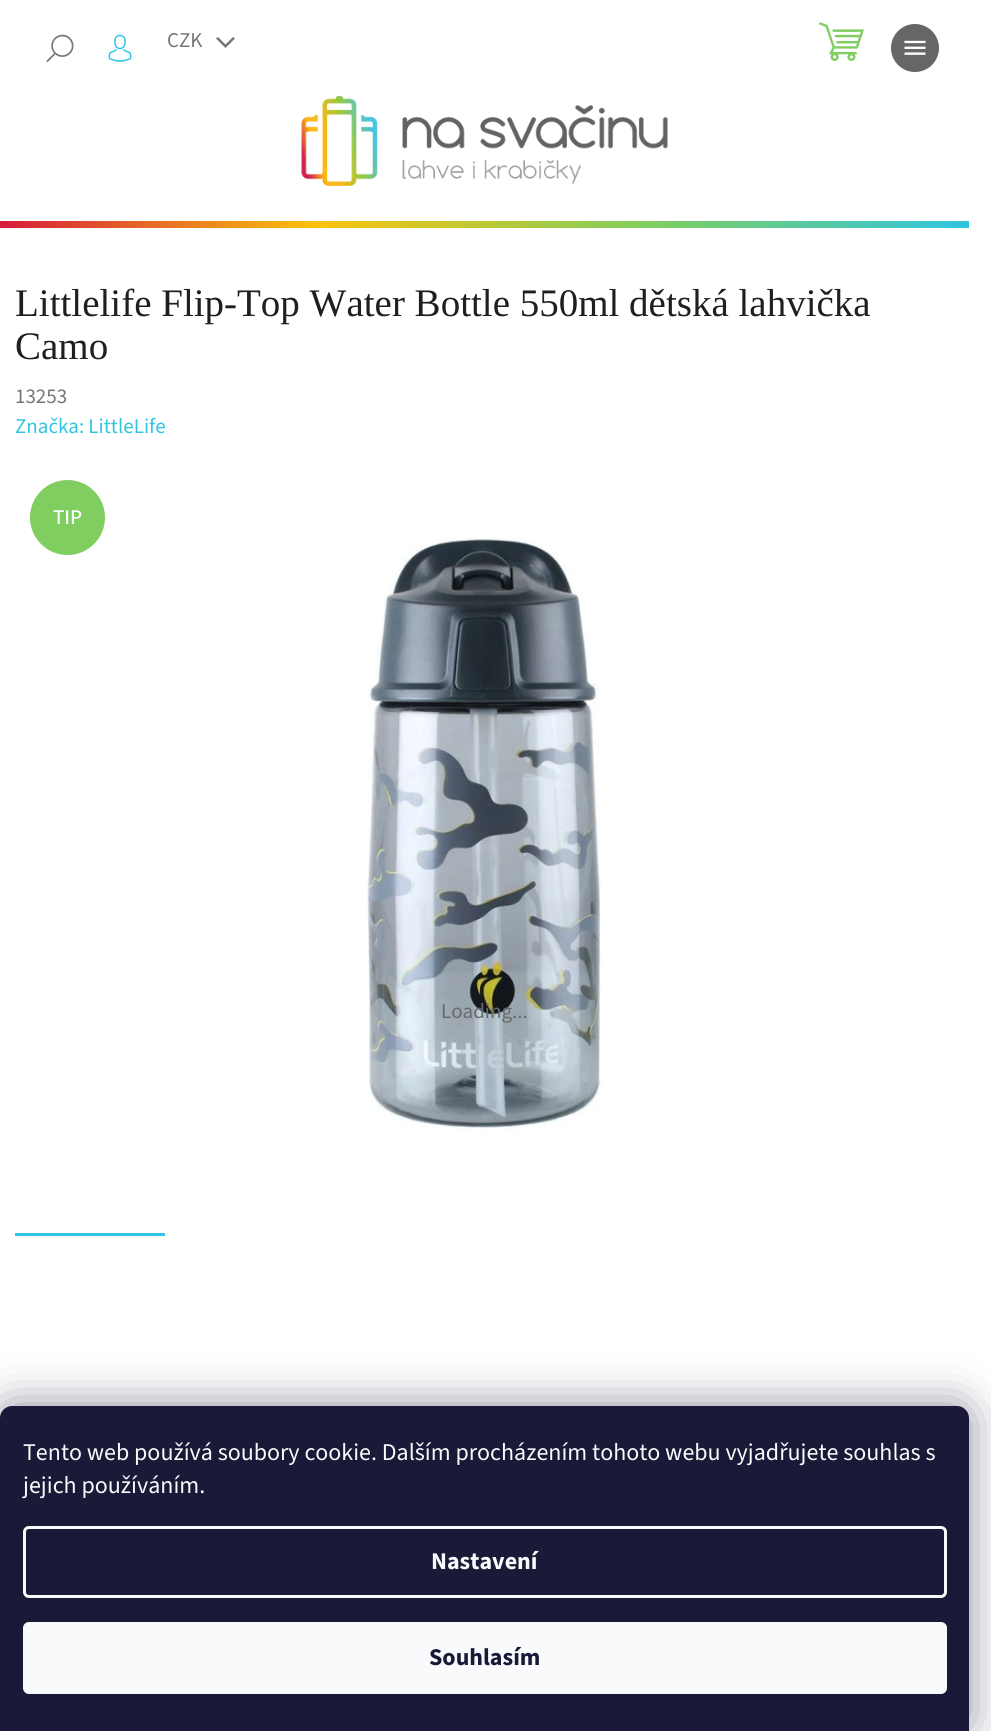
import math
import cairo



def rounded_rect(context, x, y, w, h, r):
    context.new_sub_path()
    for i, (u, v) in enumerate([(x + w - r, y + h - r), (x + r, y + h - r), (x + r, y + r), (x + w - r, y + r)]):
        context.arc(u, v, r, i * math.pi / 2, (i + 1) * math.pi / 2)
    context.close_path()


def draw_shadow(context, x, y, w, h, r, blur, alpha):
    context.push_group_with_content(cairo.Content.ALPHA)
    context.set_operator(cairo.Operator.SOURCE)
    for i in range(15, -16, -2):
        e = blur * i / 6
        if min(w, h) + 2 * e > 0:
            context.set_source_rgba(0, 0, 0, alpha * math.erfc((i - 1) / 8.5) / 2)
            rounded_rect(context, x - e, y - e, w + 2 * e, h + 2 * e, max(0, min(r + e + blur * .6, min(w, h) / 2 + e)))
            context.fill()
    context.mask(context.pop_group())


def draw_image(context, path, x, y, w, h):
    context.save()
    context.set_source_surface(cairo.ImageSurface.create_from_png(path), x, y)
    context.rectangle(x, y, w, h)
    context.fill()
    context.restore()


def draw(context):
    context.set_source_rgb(1, 1, 1)
    context.paint()
    draw_image(context, "images/1.png", 819, 22, 45, 39)
    draw_image(context, "images/2.png", 301, 96, 367, 90)
    gradient = cairo.LinearGradient(0, 224, 969, 224)
    gradient.add_color_stop_rgba(0, 214 / 255, 28 / 255, 59 / 255, 1)
    gradient.add_color_stop_rgba(0.33, 250 / 255, 195 / 255, 13 / 255, 1)
    gradient.add_color_stop_rgba(0.67, 127 / 255, 206 / 255, 95 / 255, 1)
    gradient.add_color_stop_rgba(1, 47 / 255, 197 / 255, 224 / 255, 1)
    context.set_source(gradient)
    context.rectangle(0, 221, 969, 7)
    context.fill()
    draw_image(context, "images/3.png", 46, 34, 28, 28)
    draw_image(context, "images/4.png", 108, 34, 24, 28)
    context.set_source_rgb(102 / 255, 102 / 255, 102 / 255)
    context.arc(915, 48, 24, 0, 2 * math.pi)
    context.fill()
    draw_image(context, "images/5.png", 904, 40, 22, 15)
    context.set_source_rgb(118 / 255, 118 / 255, 118 / 255)
    context.new_path()
    context.move_to(216, 38.5)
    context.line_to(218, 37)
    context.line_to(225.5, 44.5)
    context.line_to(233, 37)
    context.line_to(235, 38.5)
    context.line_to(225.5, 48)
    context.close_path()
    context.fill()
    context.set_source_rgb(127 / 255, 206 / 255, 95 / 255)
    context.arc(67.5, 517.5, 37.5, 0, 2 * math.pi)
    context.fill()
    draw_image(context, "images/6.png", 367, 537, 235, 593)
    context.set_source_rgb(47 / 255, 197 / 255, 224 / 255)
    context.rectangle(15, 1233, 150, 3)
    context.fill()
    context.set_source_rgb(27 / 255, 25 / 255, 57 / 255)
    draw_shadow(context, 0, 1406, 969, 325, 12, 22.5, 0.5)
    context.set_source_rgb(26 / 255, 25 / 255, 55 / 255)
    context.new_path()
    context.move_to(12, 1406)
    context.line_to(957, 1406)
    context.curve_to(963.5, 1406, 969, 1411.5, 969, 1418)
    context.line_to(969, 1731)
    context.line_to(0, 1731)
    context.line_to(0, 1418)
    context.curve_to(0, 1411.5, 5.5, 1406, 12, 1406)
    context.close_path()
    context.fill()
    rounded_rect(context, 24.5, 1527.5, 921, 69, 4.5)
    context.set_source_rgb(248 / 255, 250 / 255, 251 / 255)
    context.set_line_width(3)
    context.stroke()
    rounded_rect(context, 23, 1622, 924, 72, 6)
    context.fill()
    context.select_font_face("Source Sans 3")
    context.set_font_size(21)
    context.set_source_rgb(118 / 255, 118 / 255, 118 / 255)
    context.move_to(167, 47)
    context.show_text("CZK")
    context.select_font_face("Liberation Serif")
    context.set_font_size(39)
    context.set_source_rgb(31 / 255, 31 / 255, 31 / 255)
    context.move_to(15, 316)
    context.show_text("Littlelife Flip-Top Water Bottle 550ml dětská lahvička")
    context.move_to(15, 359)
    context.show_text("Camo")
    context.select_font_face("Source Sans 3")
    context.set_font_size(21)
    context.set_source_rgb(118 / 255, 118 / 255, 118 / 255)
    context.move_to(15, 403)
    context.show_text("13253")
    context.set_source_rgb(47 / 255, 197 / 255, 224 / 255)
    context.move_to(15, 433)
    context.show_text("Značka: LittleLife")
    context.select_font_face("Source Sans 3 Medium")
    context.set_source_rgb(1, 1, 1)
    context.move_to(53, 524)
    context.show_text("TIP")
    context.select_font_face("Source Sans 3")
    context.set_source_rgb(102 / 255, 107 / 255, 109 / 255)
    context.move_to(441, 1018)
    context.show_text("Loading...")
    context.set_font_size(24)
    context.set_source_rgb(248 / 255, 250 / 255, 251 / 255)
    context.move_to(23, 1460)
    context.show_text("Tento web používá soubory cookie. Dalším procházením tohoto webu vyjadřujete souhlas s")
    context.move_to(23, 1493)
    context.show_text("jejich používáním.")
    context.select_font_face("Source Sans 3", cairo.FontSlant.NORMAL, cairo.FontWeight.BOLD)
    context.move_to(431, 1569)
    context.show_text("Nastavení")
    context.set_source_rgb(26 / 255, 25 / 255, 55 / 255)
    context.move_to(429, 1665)
    context.show_text("Souhlasím")


surface = cairo.ImageSurface(cairo.Format.RGB24, 991, 1731)
context = cairo.Context(surface)
options = cairo.FontOptions()
options.set_hint_metrics(cairo.HintMetrics.OFF)
options.set_hint_style(cairo.HintStyle.NONE)
context.set_font_options(options)
context.set_miter_limit(4)
draw(context)
surface.write_to_png("out.png")
